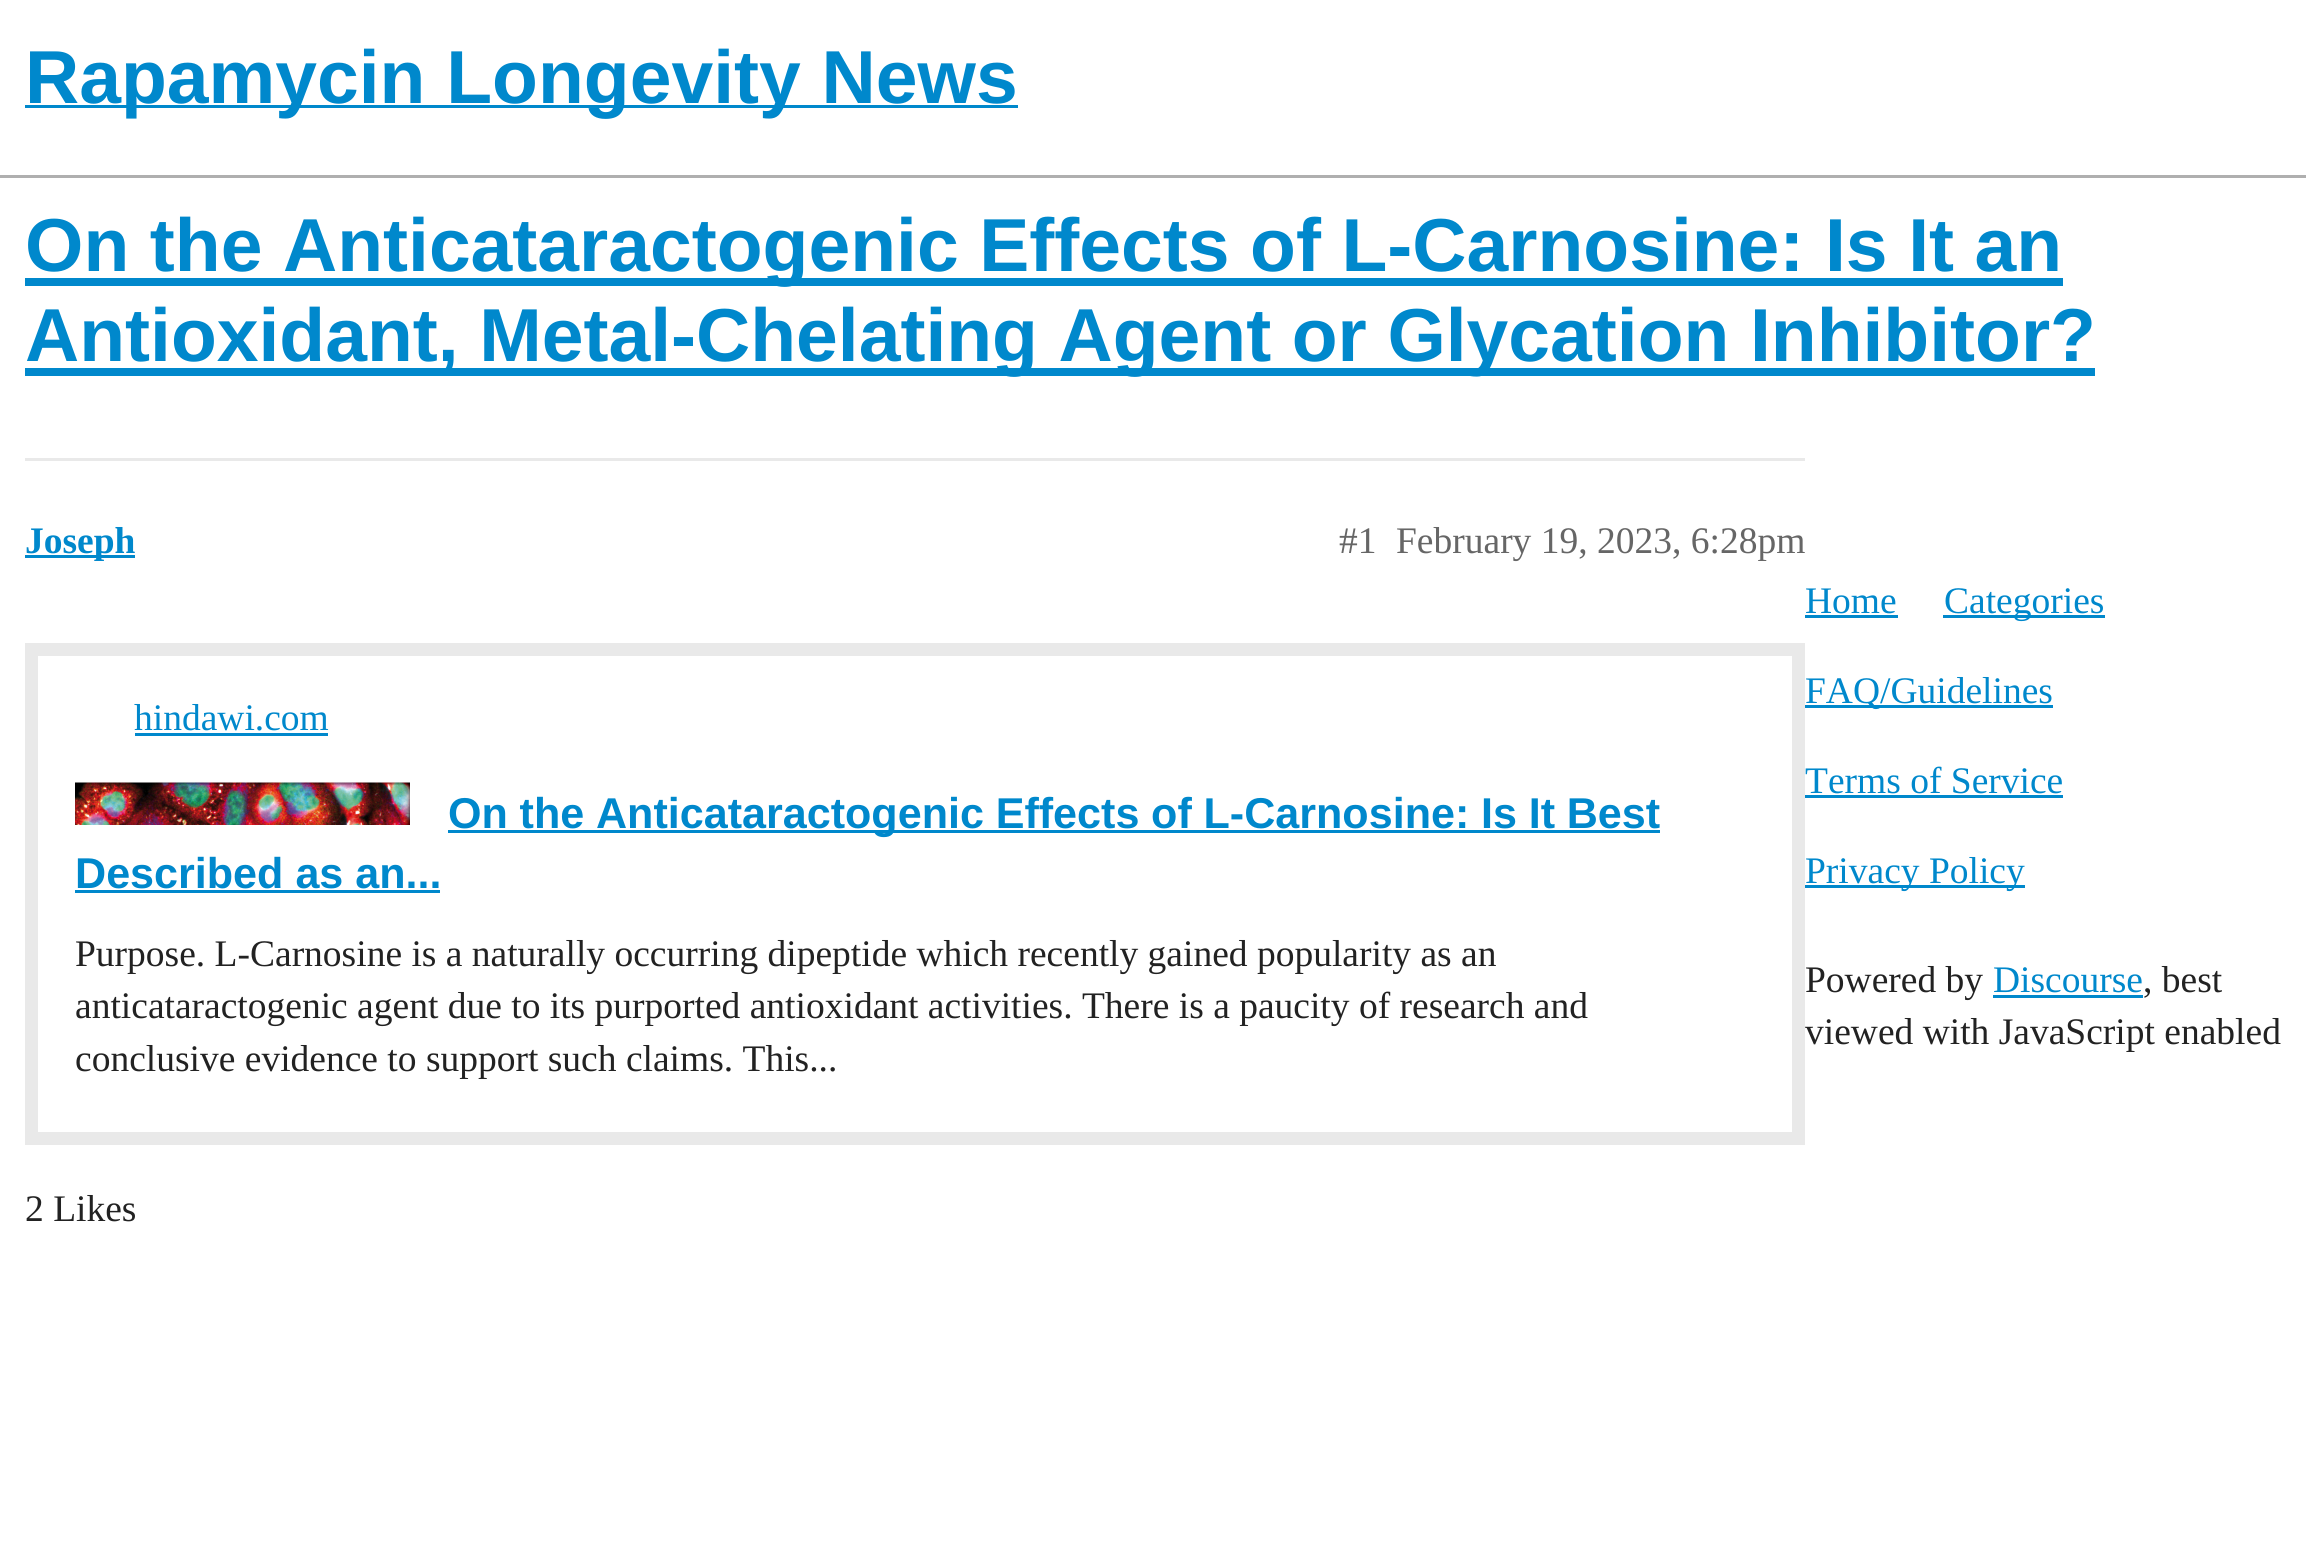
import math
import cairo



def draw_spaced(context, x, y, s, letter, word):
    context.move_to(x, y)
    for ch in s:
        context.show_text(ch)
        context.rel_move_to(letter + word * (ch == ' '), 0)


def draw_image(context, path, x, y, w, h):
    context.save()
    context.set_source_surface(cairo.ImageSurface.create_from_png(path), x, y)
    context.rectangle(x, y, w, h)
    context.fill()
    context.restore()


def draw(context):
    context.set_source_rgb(1, 1, 1)
    context.paint()
    context.set_source_rgb(175 / 255, 175 / 255, 175 / 255)
    context.rectangle(0, 175, 2306, 3)
    context.fill()
    context.set_source_rgb(0, 136 / 255, 204 / 255)
    context.rectangle(25, 105, 993, 3)
    context.fill()
    context.rectangle(25, 278, 2038, 8)
    context.fill()
    context.rectangle(25, 368, 2070, 8)
    context.fill()
    context.set_source_rgb(233 / 255, 233 / 255, 233 / 255)
    context.rectangle(25, 458, 1780, 3)
    context.fill()
    context.set_source_rgb(0, 136 / 255, 204 / 255)
    context.rectangle(25, 555, 110, 3)
    context.fill()
    context.rectangle(31.5, 649.5, 1767, 489)
    context.set_source_rgb(233 / 255, 233 / 255, 233 / 255)
    context.set_line_width(13)
    context.stroke()
    context.set_source_rgb(0, 136 / 255, 204 / 255)
    context.rectangle(135, 733, 193, 3)
    context.fill()
    draw_image(context, "images/1.png", 75, 782, 335, 43)
    context.rectangle(448, 830, 1212, 3)
    context.fill()
    context.rectangle(75, 890, 365, 3)
    context.fill()
    context.rectangle(1805, 615, 93, 3)
    context.fill()
    context.rectangle(1943, 615, 162, 3)
    context.fill()
    context.rectangle(1805, 705, 248, 3)
    context.fill()
    context.rectangle(1805, 795, 258, 3)
    context.fill()
    context.rectangle(1805, 885, 220, 3)
    context.fill()
    context.rectangle(1993, 995, 150, 3)
    context.fill()
    context.select_font_face("Liberation Sans", cairo.FontSlant.NORMAL, cairo.FontWeight.BOLD)
    context.set_font_size(75.05)
    context.move_to(25, 103)
    context.show_text("Rapamycin Longevity News")
    draw_spaced(context, 25, 271, "On the Anticataractogenic Effects of L-Carnosine: Is It an", 0, -0.25)
    draw_spaced(context, 25, 361, "Antioxidant, Metal-Chelating Agent or Glycation Inhibitor?", 0, -0.25)
    context.select_font_face("Liberation Serif", cairo.FontSlant.NORMAL, cairo.FontWeight.BOLD)
    context.set_font_size(37.5)
    context.move_to(25, 553)
    context.show_text("Joseph")
    context.select_font_face("Liberation Serif")
    context.set_source_rgb(102 / 255, 102 / 255, 102 / 255)
    context.move_to(1339, 553)
    context.show_text("#1")
    context.move_to(1396, 553)
    context.show_text("February 19, 2023, 6:28pm")
    context.set_source_rgb(0, 136 / 255, 204 / 255)
    context.move_to(134, 730)
    context.show_text("hindawi.com")
    context.select_font_face("Liberation Sans", cairo.FontSlant.NORMAL, cairo.FontWeight.BOLD)
    context.set_font_size(43.1)
    draw_spaced(context, 448, 828, "On the Anticataractogenic Effects of L-Carnosine: Is It Best", 0, -0.25)
    context.move_to(75, 888)
    context.show_text("Described as an...")
    context.select_font_face("Liberation Serif")
    context.set_font_size(37.5)
    context.set_source_rgb(34 / 255, 34 / 255, 34 / 255)
    context.move_to(75, 966)
    context.show_text("Purpose. L-Carnosine is a naturally occurring dipeptide which recently gained popularity as an")
    context.move_to(75, 1018)
    context.show_text("anticataractogenic agent due to its purported antioxidant activities. There is a paucity of research and")
    context.move_to(75, 1071)
    context.show_text("conclusive evidence to support such claims. This...")
    context.move_to(25, 1221)
    context.show_text("2 Likes")
    context.set_source_rgb(0, 136 / 255, 204 / 255)
    context.move_to(1805, 613)
    context.show_text("Home")
    context.move_to(1944, 613)
    context.show_text("Categories")
    context.move_to(1805, 703)
    context.show_text("FAQ/Guidelines")
    context.move_to(1805, 793)
    context.show_text("Terms of Service")
    context.move_to(1805, 883)
    context.show_text("Privacy Policy")
    context.set_source_rgb(34 / 255, 34 / 255, 34 / 255)
    context.move_to(1805, 992)
    context.show_text("Powered by")
    context.set_source_rgb(0, 136 / 255, 204 / 255)
    context.move_to(1993, 992)
    context.show_text("Discourse")
    context.set_source_rgb(34 / 255, 34 / 255, 34 / 255)
    context.move_to(2143, 992)
    context.show_text(", best")
    context.move_to(1805, 1044)
    context.show_text("viewed with JavaScript enabled")


surface = cairo.ImageSurface(cairo.Format.RGB24, 2306, 1551)
context = cairo.Context(surface)
options = cairo.FontOptions()
options.set_hint_metrics(cairo.HintMetrics.OFF)
options.set_hint_style(cairo.HintStyle.NONE)
context.set_font_options(options)
context.set_miter_limit(4)
draw(context)
surface.write_to_png("out.png")
